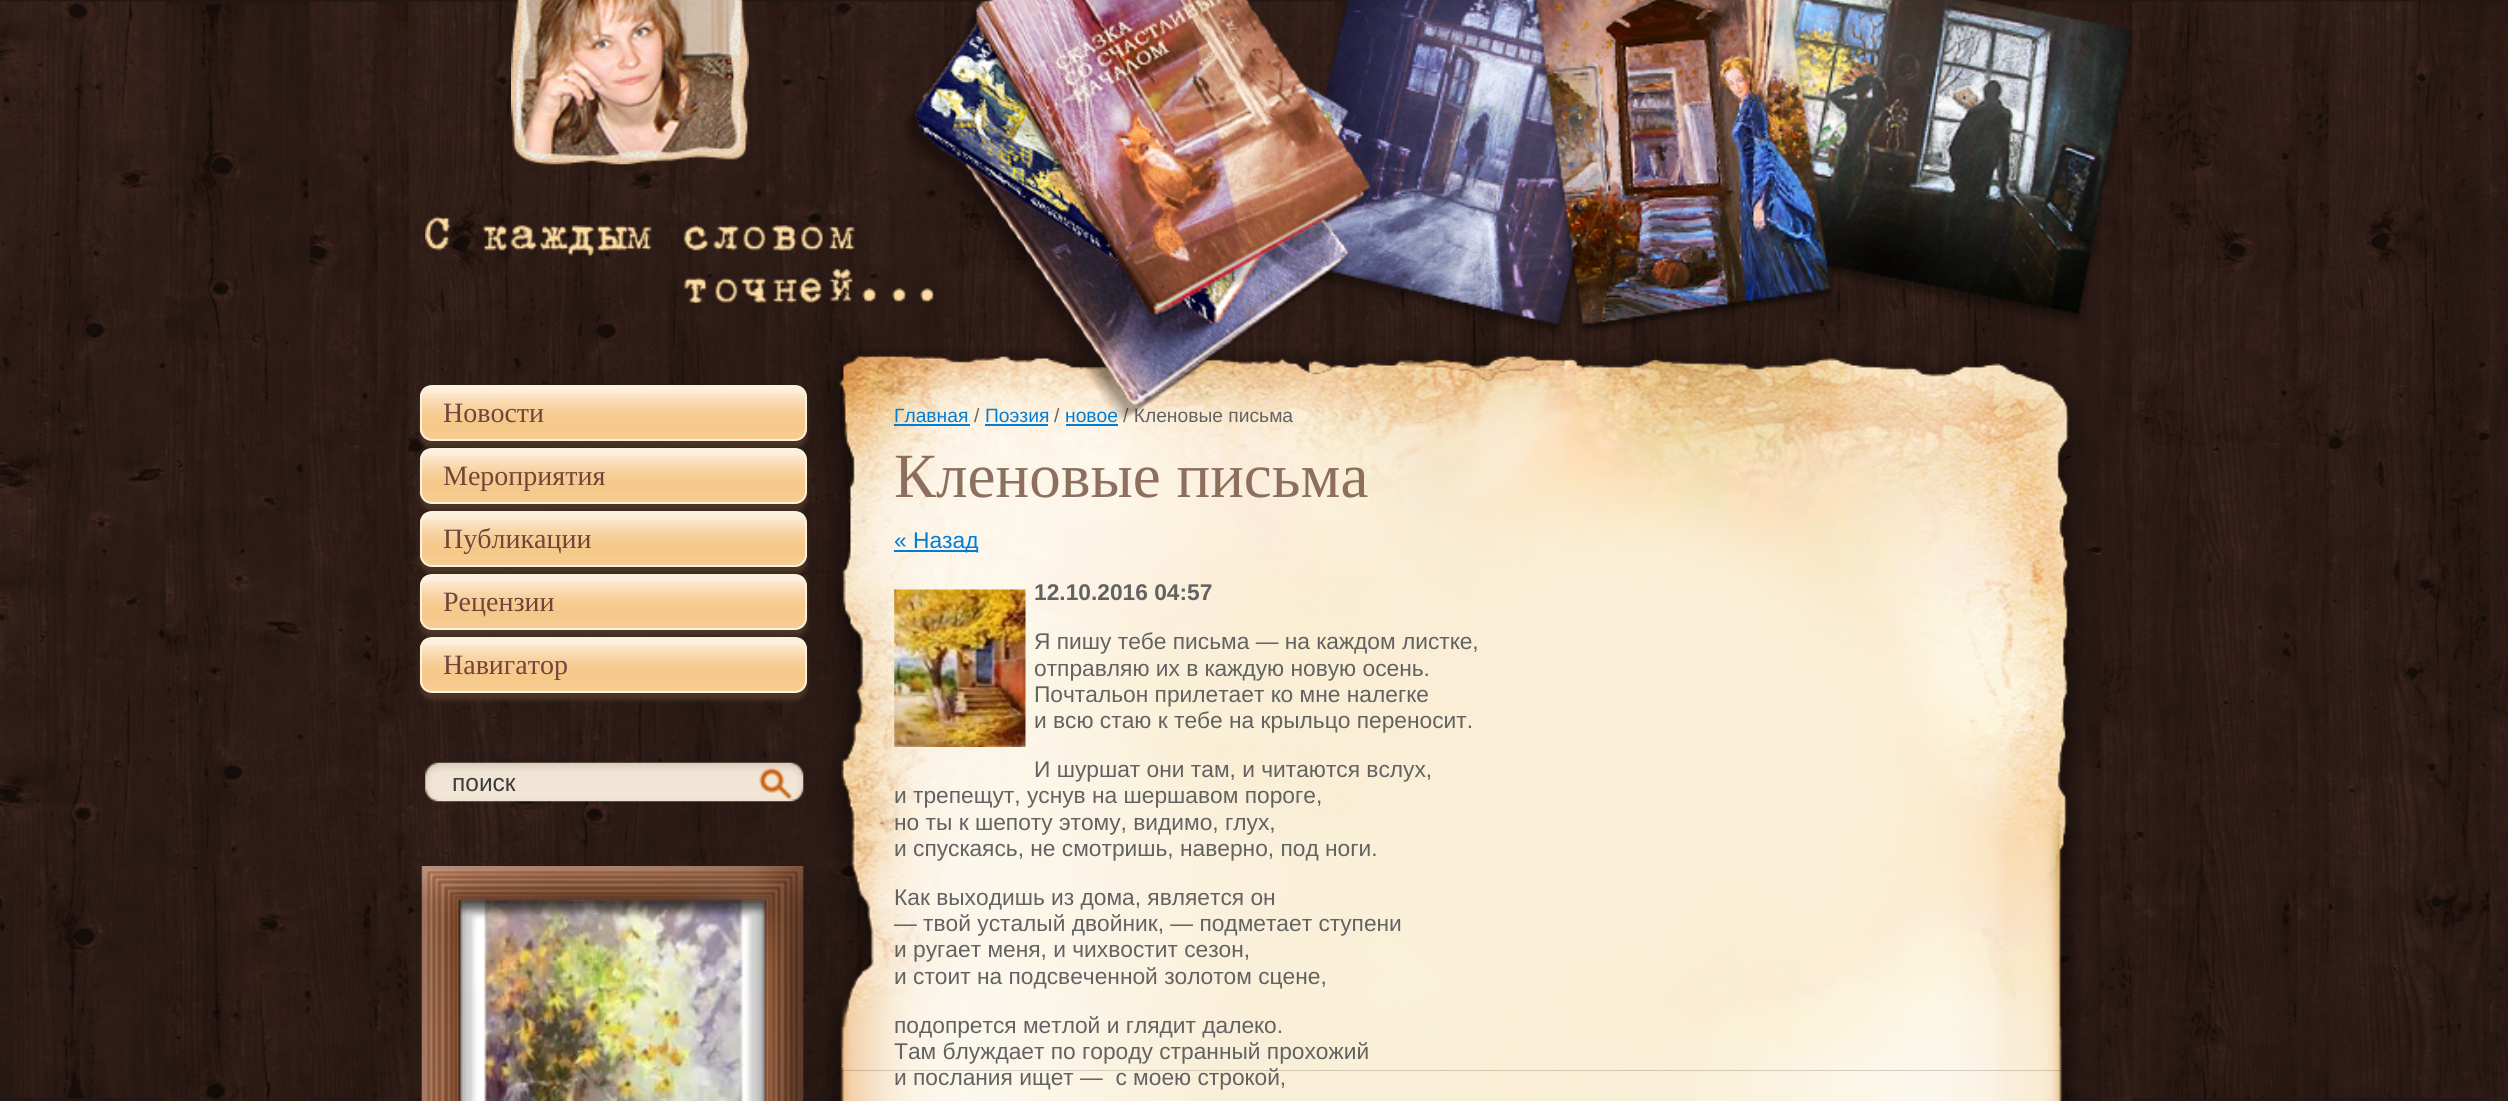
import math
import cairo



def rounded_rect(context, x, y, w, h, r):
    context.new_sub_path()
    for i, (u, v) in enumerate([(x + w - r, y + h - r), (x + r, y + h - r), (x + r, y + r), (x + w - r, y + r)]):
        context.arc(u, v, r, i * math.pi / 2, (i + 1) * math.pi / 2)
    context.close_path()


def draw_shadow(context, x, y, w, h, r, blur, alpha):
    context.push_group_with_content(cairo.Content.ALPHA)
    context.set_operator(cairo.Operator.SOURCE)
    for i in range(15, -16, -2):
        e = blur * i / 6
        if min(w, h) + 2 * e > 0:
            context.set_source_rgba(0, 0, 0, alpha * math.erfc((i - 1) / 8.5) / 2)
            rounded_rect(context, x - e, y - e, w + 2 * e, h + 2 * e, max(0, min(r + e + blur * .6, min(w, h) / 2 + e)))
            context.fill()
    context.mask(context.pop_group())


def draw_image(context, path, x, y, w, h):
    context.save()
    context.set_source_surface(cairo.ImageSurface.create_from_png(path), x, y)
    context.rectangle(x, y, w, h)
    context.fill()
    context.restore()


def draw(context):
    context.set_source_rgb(1, 1, 1)
    context.paint()
    draw_image(context, "images/1.png", 0, 0, 2508, 1101)
    draw_image(context, "images/2.png", 511, 0, 238, 165)
    draw_image(context, "images/4.png", 425, 216, 510, 88)
    context.set_source_rgb(73 / 255, 52 / 255, 37 / 255)
    draw_shadow(context, 420, 392, 387, 56, 12, 2, 1)
    draw_image(context, "images/5.png", 420, 386, 387, 53)
    rounded_rect(context, 421, 386, 385, 54, 11)
    context.set_source_rgb(251 / 255, 242 / 255, 221 / 255)
    context.stroke()
    context.set_source_rgb(73 / 255, 52 / 255, 37 / 255)
    draw_shadow(context, 420, 455, 387, 56, 12, 2, 1)
    draw_image(context, "images/6.png", 420, 449, 387, 53)
    rounded_rect(context, 421, 449, 385, 54, 11)
    context.set_source_rgb(251 / 255, 242 / 255, 221 / 255)
    context.stroke()
    context.set_source_rgb(73 / 255, 52 / 255, 37 / 255)
    draw_shadow(context, 420, 518, 387, 56, 12, 2, 1)
    draw_image(context, "images/7.png", 420, 512, 387, 53)
    rounded_rect(context, 421, 512, 385, 54, 11)
    context.set_source_rgb(251 / 255, 242 / 255, 221 / 255)
    context.stroke()
    context.set_source_rgb(73 / 255, 52 / 255, 37 / 255)
    draw_shadow(context, 420, 581, 387, 56, 12, 2, 1)
    draw_image(context, "images/8.png", 420, 575, 387, 53)
    rounded_rect(context, 421, 575, 385, 54, 11)
    context.set_source_rgb(251 / 255, 242 / 255, 221 / 255)
    context.stroke()
    context.set_source_rgb(73 / 255, 52 / 255, 37 / 255)
    draw_shadow(context, 420, 644, 387, 56, 12, 2, 1)
    draw_image(context, "images/9.png", 420, 638, 387, 53)
    rounded_rect(context, 421, 638, 385, 54, 11)
    context.set_source_rgb(251 / 255, 242 / 255, 221 / 255)
    context.stroke()
    draw_image(context, "images/10.png", 425, 762, 379, 40)
    draw_image(context, "images/12.png", 459, 899, 307, 202)
    draw_image(context, "images/11.png", 421, 866, 383, 235)
    draw_image(context, "images/13.png", 826, 348, 1257, 723)
    context.set_source_rgb(0, 125 / 255, 213 / 255)
    context.rectangle(894, 424, 76, 2)
    context.fill()
    context.rectangle(985, 424, 63, 2)
    context.fill()
    context.rectangle(1066, 424, 52, 2)
    context.fill()
    context.rectangle(894, 550, 84, 2)
    context.fill()
    draw_image(context, "images/14.png", 894, 589, 132, 158)
    draw_image(context, "images/15.png", 826, 1070, 1252, 31)
    context.select_font_face("Liberation Serif")
    context.set_font_size(28)
    context.set_source_rgb(111 / 255, 69 / 255, 60 / 255)
    context.move_to(443, 422)
    context.show_text("Новости")
    context.move_to(443, 485)
    context.show_text("Мероприятия")
    context.move_to(443, 548)
    context.show_text("Публикации")
    context.move_to(443, 611)
    context.show_text("Рецензии")
    context.move_to(443, 674)
    context.show_text("Навигатор")
    context.select_font_face("Liberation Sans")
    context.set_font_size(24.5)
    context.set_source_rgb(60 / 255, 60 / 255, 60 / 255)
    context.move_to(452, 791)
    context.show_text("поиск")
    context.set_font_size(19.25)
    context.set_source_rgb(0, 125 / 255, 213 / 255)
    context.move_to(894, 422)
    context.show_text("Главная")
    context.set_source_rgb(99 / 255, 98 / 255, 98 / 255)
    context.move_to(974, 422)
    context.show_text("/")
    context.set_source_rgb(0, 125 / 255, 213 / 255)
    context.move_to(985, 422)
    context.show_text("Поэзия")
    context.set_source_rgb(99 / 255, 98 / 255, 98 / 255)
    context.move_to(1054, 422)
    context.show_text("/")
    context.set_source_rgb(0, 125 / 255, 213 / 255)
    context.move_to(1065, 422)
    context.show_text("новое")
    context.set_source_rgb(99 / 255, 98 / 255, 98 / 255)
    context.move_to(1123, 422)
    context.show_text("/ Кленовые письма")
    draw_image(context, "images/3.png", 902, 0, 1232, 420)
    context.select_font_face("Liberation Serif")
    context.set_font_size(63)
    context.set_source_rgb(140 / 255, 111 / 255, 93 / 255)
    context.move_to(894, 497)
    context.show_text("Кленовые письма")
    context.select_font_face("Liberation Sans")
    context.set_font_size(22.75)
    context.set_source_rgb(0, 125 / 255, 213 / 255)
    context.move_to(894, 548)
    context.show_text("« Назад")
    context.select_font_face("Liberation Sans", cairo.FontSlant.NORMAL, cairo.FontWeight.BOLD)
    context.set_source_rgb(99 / 255, 98 / 255, 98 / 255)
    context.move_to(1034, 600)
    context.show_text("12.10.2016 04:57")
    context.select_font_face("Liberation Sans")
    context.move_to(1034, 649)
    context.show_text("Я пишу тебе письма — на каждом листке,")
    context.move_to(1034, 676)
    context.show_text("отправляю их в каждую новую осень.")
    context.move_to(1034, 702)
    context.show_text("Почтальон прилетает ко мне налегке")
    context.move_to(1034, 728)
    context.show_text("и всю стаю к тебе на крыльцо переносит.")
    context.move_to(1034, 777)
    context.show_text("И шуршат они там, и читаются вслух,")
    context.move_to(894, 803)
    context.show_text("и трепещут, уснув на шершавом пороге,")
    context.move_to(894, 830)
    context.show_text("но ты к шепоту этому, видимо, глух,")
    context.move_to(894, 856)
    context.show_text("и спускаясь, не смотришь, наверно, под ноги.")
    context.move_to(894, 905)
    context.show_text("Как выходишь из дома, является он")
    context.move_to(894, 931)
    context.show_text("— твой усталый двойник, — подметает ступени")
    context.move_to(894, 957)
    context.show_text("и ругает меня, и чихвостит сезон,")
    context.move_to(894, 984)
    context.show_text("и стоит на подсвеченной золотом сцене,")
    context.move_to(894, 1033)
    context.show_text("подопрется метлой и глядит далеко.")
    context.move_to(894, 1059)
    context.show_text("Там блуждает по городу странный прохожий")
    context.move_to(894, 1085)
    context.show_text("и послания ищет —  с моею строкой,")


surface = cairo.ImageSurface(cairo.Format.RGB24, 2508, 1101)
context = cairo.Context(surface)
options = cairo.FontOptions()
options.set_hint_metrics(cairo.HintMetrics.OFF)
options.set_hint_style(cairo.HintStyle.NONE)
context.set_font_options(options)
context.set_miter_limit(4)
draw(context)
surface.write_to_png("out.png")
